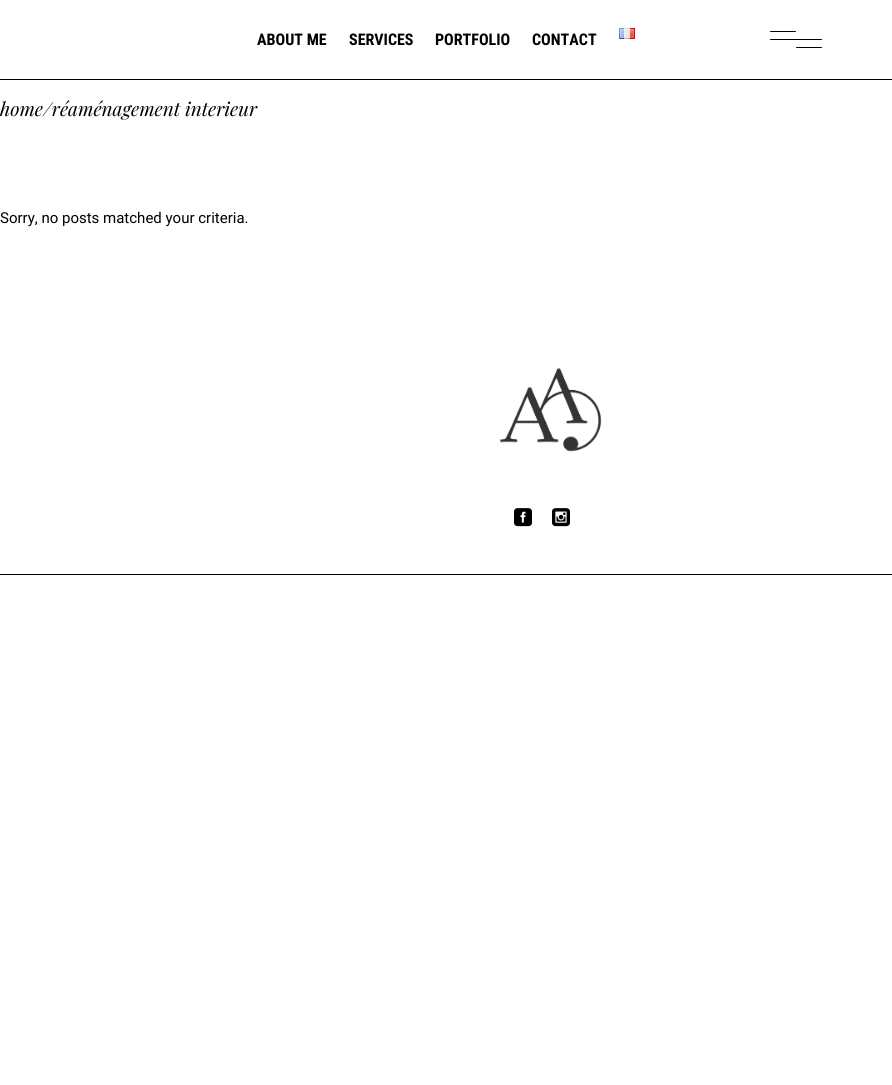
import math
import cairo



def rounded_rect(context, x, y, w, h, r):
    context.new_sub_path()
    for i, (u, v) in enumerate([(x + w - r, y + h - r), (x + r, y + h - r), (x + r, y + r), (x + w - r, y + r)]):
        context.arc(u, v, r, i * math.pi / 2, (i + 1) * math.pi / 2)
    context.close_path()


def draw_image(context, path, x, y, w, h):
    context.save()
    context.set_source_surface(cairo.ImageSurface.create_from_png(path), x, y)
    context.rectangle(x, y, w, h)
    context.fill()
    context.restore()


def draw(context):
    context.set_source_rgb(1, 1, 1)
    context.paint()
    context.set_source_rgb(0, 0, 0)
    context.rectangle(0, 79, 892, 1)
    context.fill()
    draw_image(context, "images/1.png", 619, 28, 16, 11)
    rounded_rect(context, 770, 31, 26, 1, 0.5)
    context.fill()
    rounded_rect(context, 770, 39, 52, 1, 0.5)
    context.fill()
    rounded_rect(context, 796, 47, 26, 1, 0.5)
    context.fill()
    context.rectangle(0, 574, 892, 1)
    context.fill()
    draw_image(context, "images/2.png", 500, 368, 102, 84)
    draw_image(context, "images/3.png", 514, 508, 18, 19)
    draw_image(context, "images/4.png", 552, 508, 18, 19)
    context.select_font_face("Roboto Condensed", cairo.FontSlant.NORMAL, cairo.FontWeight.BOLD)
    context.set_font_size(16)
    context.move_to(257, 45)
    context.show_text("ABOUT ME")
    context.move_to(349, 45)
    context.show_text("SERVICES")
    context.move_to(435, 45)
    context.show_text("PORTFOLIO")
    context.move_to(532, 45)
    context.show_text("CONTACT")
    context.select_font_face("Playfair Display", cairo.FontSlant.ITALIC)
    context.set_font_size(19)
    context.move_to(0, 116)
    context.show_text("home/réaménagement interieur")
    context.select_font_face("Roboto")
    context.set_font_size(15)
    context.move_to(0, 223)
    context.show_text("Sorry, no posts matched your criteria.")


surface = cairo.ImageSurface(cairo.Format.RGB24, 892, 1085)
context = cairo.Context(surface)
options = cairo.FontOptions()
options.set_hint_metrics(cairo.HintMetrics.OFF)
options.set_hint_style(cairo.HintStyle.NONE)
context.set_font_options(options)
context.set_miter_limit(4)
draw(context)
surface.write_to_png("out.png")
